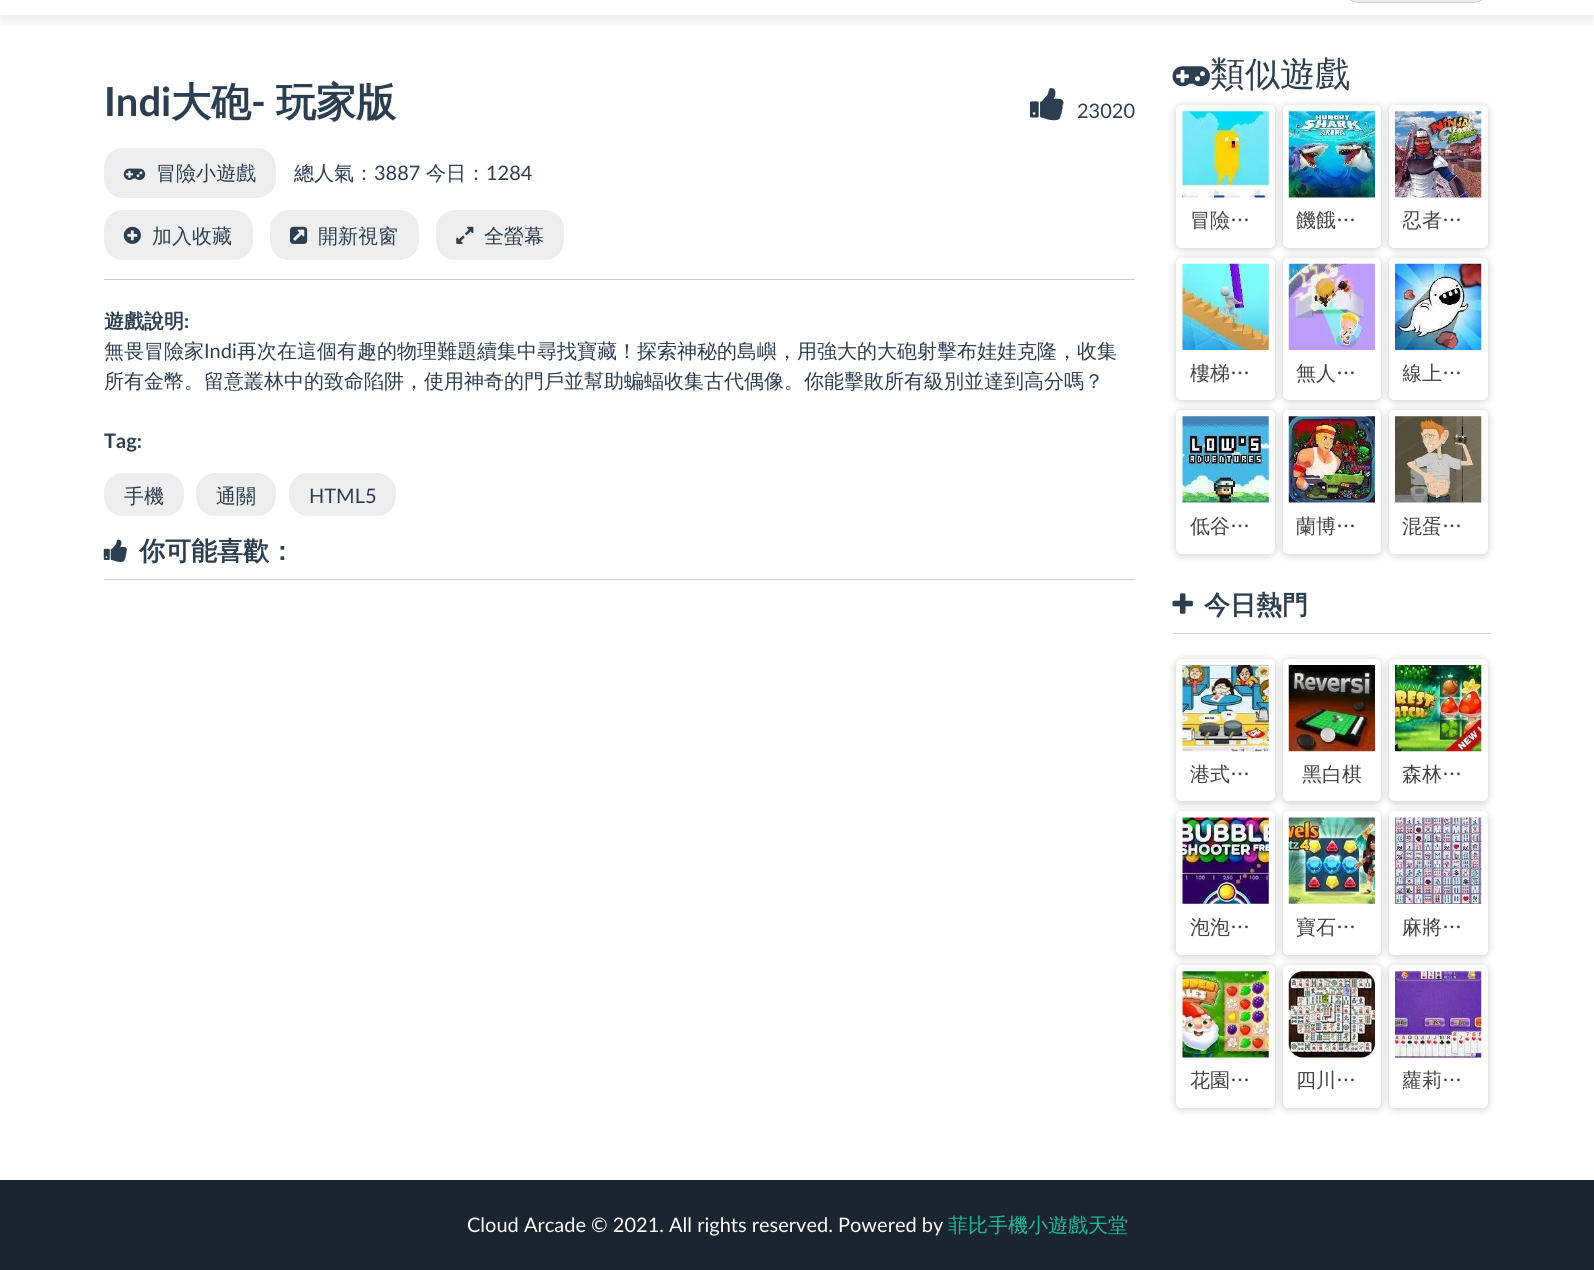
import math
import cairo



def rounded_rect(context, x, y, w, h, r):
    context.new_sub_path()
    for i, (u, v) in enumerate([(x + w - r, y + h - r), (x + r, y + h - r), (x + r, y + r), (x + w - r, y + r)]):
        context.arc(u, v, r, i * math.pi / 2, (i + 1) * math.pi / 2)
    context.close_path()


def draw_shadow(context, x, y, w, h, r, blur, alpha):
    context.push_group_with_content(cairo.Content.ALPHA)
    context.set_operator(cairo.Operator.SOURCE)
    for i in range(15, -16, -2):
        e = blur * i / 6
        if min(w, h) + 2 * e > 0:
            context.set_source_rgba(0, 0, 0, alpha * math.erfc((i - 1) / 8.5) / 2)
            rounded_rect(context, x - e, y - e, w + 2 * e, h + 2 * e, max(0, min(r + e + blur * .6, min(w, h) / 2 + e)))
            context.fill()
    context.mask(context.pop_group())


def draw_image(context, path, x, y, w, h):
    context.save()
    context.set_source_surface(cairo.ImageSurface.create_from_png(path), x, y)
    context.rectangle(x, y, w, h)
    context.fill()
    context.restore()


def draw(context):
    context.set_source_rgb(1, 1, 1)
    context.paint()
    context.save()
    context.rectangle(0, 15, 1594, 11)
    context.clip()
    context.set_source_rgb(43 / 255, 43 / 255, 43 / 255)
    draw_shadow(context, 0, -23, 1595, 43, 0, 7.5, 0.1)
    context.restore()
    context.set_source_rgb(239 / 255, 239 / 255, 239 / 255)
    rounded_rect(context, 1341.5, -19.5, 149, 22, 18.5)
    context.fill_preserve()
    context.set_source_rgb(204 / 255, 204 / 255, 204 / 255)
    context.set_line_width(1)
    context.stroke()
    context.rectangle(104, 279, 1031, 1)
    context.fill()
    draw_image(context, "images/1.png", 1030, 88, 34, 33)
    context.set_source_rgb(238 / 255, 238 / 255, 238 / 255)
    rounded_rect(context, 104, 148, 172, 50, 19)
    context.fill()
    draw_image(context, "images/2.png", 123, 168, 23, 12)
    rounded_rect(context, 104, 210, 149, 50, 19)
    context.fill()
    draw_image(context, "images/3.png", 123, 226, 18, 18)
    rounded_rect(context, 270, 210, 149, 50, 19)
    context.fill()
    draw_image(context, "images/4.png", 290, 226, 18, 18)
    rounded_rect(context, 436, 210, 128, 50, 19)
    context.fill()
    draw_image(context, "images/5.png", 456, 226, 18, 18)
    rounded_rect(context, 104, 473, 80, 43, 19)
    context.fill()
    rounded_rect(context, 196, 473, 80, 43, 19)
    context.fill()
    rounded_rect(context, 289, 473, 107, 43, 19)
    context.fill()
    context.set_source_rgb(204 / 255, 204 / 255, 204 / 255)
    context.rectangle(104, 579, 1031, 1)
    context.fill()
    draw_image(context, "images/6.png", 103, 539, 24, 23)
    draw_image(context, "images/7.png", 1172, 66, 38, 21)
    context.save()
    context.set_fill_rule(cairo.FillRule.EVEN_ODD)
    context.new_path()
    context.move_to(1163, 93)
    context.line_to(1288, 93)
    context.line_to(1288, 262)
    context.line_to(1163, 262)
    context.close_path()
    context.move_to(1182, 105)
    context.line_to(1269, 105)
    context.curve_to(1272.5, 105, 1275, 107.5, 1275, 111)
    context.line_to(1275, 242)
    context.curve_to(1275, 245.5, 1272.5, 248, 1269, 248)
    context.line_to(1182, 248)
    context.curve_to(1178.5, 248, 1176, 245.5, 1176, 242)
    context.line_to(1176, 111)
    context.curve_to(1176, 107.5, 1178.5, 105, 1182, 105)
    context.close_path()
    context.clip()
    context.set_source_rgb(50 / 255, 50 / 255, 50 / 255)
    draw_shadow(context, 1176, 106, 99, 143, 6, 4, 0.25)
    context.restore()
    draw_image(context, "images/8.png", 1182, 111, 87, 87)
    context.save()
    context.set_fill_rule(cairo.FillRule.EVEN_ODD)
    context.new_path()
    context.move_to(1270, 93)
    context.line_to(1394, 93)
    context.line_to(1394, 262)
    context.line_to(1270, 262)
    context.close_path()
    context.move_to(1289, 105)
    context.line_to(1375, 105)
    context.curve_to(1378.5, 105, 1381, 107.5, 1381, 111)
    context.line_to(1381, 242)
    context.curve_to(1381, 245.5, 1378.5, 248, 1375, 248)
    context.line_to(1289, 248)
    context.curve_to(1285.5, 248, 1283, 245.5, 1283, 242)
    context.line_to(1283, 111)
    context.curve_to(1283, 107.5, 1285.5, 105, 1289, 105)
    context.close_path()
    context.clip()
    context.set_source_rgb(50 / 255, 50 / 255, 50 / 255)
    draw_shadow(context, 1283, 106, 98, 143, 6, 4, 0.25)
    context.restore()
    draw_image(context, "images/9.png", 1288, 111, 87, 87)
    context.save()
    context.set_fill_rule(cairo.FillRule.EVEN_ODD)
    context.new_path()
    context.move_to(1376, 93)
    context.line_to(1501, 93)
    context.line_to(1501, 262)
    context.line_to(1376, 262)
    context.close_path()
    context.move_to(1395, 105)
    context.line_to(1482, 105)
    context.curve_to(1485.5, 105, 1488, 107.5, 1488, 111)
    context.line_to(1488, 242)
    context.curve_to(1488, 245.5, 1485.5, 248, 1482, 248)
    context.line_to(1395, 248)
    context.curve_to(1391.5, 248, 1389, 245.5, 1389, 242)
    context.line_to(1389, 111)
    context.curve_to(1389, 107.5, 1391.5, 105, 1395, 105)
    context.close_path()
    context.clip()
    context.set_source_rgb(50 / 255, 50 / 255, 50 / 255)
    draw_shadow(context, 1389, 106, 99, 143, 6, 4, 0.25)
    context.restore()
    draw_image(context, "images/10.png", 1395, 111, 87, 87)
    context.save()
    context.set_fill_rule(cairo.FillRule.EVEN_ODD)
    context.new_path()
    context.move_to(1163, 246)
    context.line_to(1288, 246)
    context.line_to(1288, 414)
    context.line_to(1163, 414)
    context.close_path()
    context.move_to(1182, 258)
    context.line_to(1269, 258)
    context.curve_to(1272.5, 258, 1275, 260.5, 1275, 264)
    context.line_to(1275, 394)
    context.curve_to(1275, 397.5, 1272.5, 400, 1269, 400)
    context.line_to(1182, 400)
    context.curve_to(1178.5, 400, 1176, 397.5, 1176, 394)
    context.line_to(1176, 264)
    context.curve_to(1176, 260.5, 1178.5, 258, 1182, 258)
    context.close_path()
    context.clip()
    context.set_source_rgb(50 / 255, 50 / 255, 50 / 255)
    draw_shadow(context, 1176, 259, 99, 142, 6, 4, 0.25)
    context.restore()
    draw_image(context, "images/11.png", 1182, 263, 87, 87)
    context.save()
    context.set_fill_rule(cairo.FillRule.EVEN_ODD)
    context.new_path()
    context.move_to(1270, 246)
    context.line_to(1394, 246)
    context.line_to(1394, 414)
    context.line_to(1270, 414)
    context.close_path()
    context.move_to(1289, 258)
    context.line_to(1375, 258)
    context.curve_to(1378.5, 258, 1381, 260.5, 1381, 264)
    context.line_to(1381, 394)
    context.curve_to(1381, 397.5, 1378.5, 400, 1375, 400)
    context.line_to(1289, 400)
    context.curve_to(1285.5, 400, 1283, 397.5, 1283, 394)
    context.line_to(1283, 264)
    context.curve_to(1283, 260.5, 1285.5, 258, 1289, 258)
    context.close_path()
    context.clip()
    context.set_source_rgb(50 / 255, 50 / 255, 50 / 255)
    draw_shadow(context, 1283, 259, 98, 142, 6, 4, 0.25)
    context.restore()
    draw_image(context, "images/12.png", 1288, 263, 87, 87)
    context.save()
    context.set_fill_rule(cairo.FillRule.EVEN_ODD)
    context.new_path()
    context.move_to(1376, 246)
    context.line_to(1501, 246)
    context.line_to(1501, 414)
    context.line_to(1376, 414)
    context.close_path()
    context.move_to(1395, 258)
    context.line_to(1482, 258)
    context.curve_to(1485.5, 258, 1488, 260.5, 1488, 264)
    context.line_to(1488, 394)
    context.curve_to(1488, 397.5, 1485.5, 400, 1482, 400)
    context.line_to(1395, 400)
    context.curve_to(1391.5, 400, 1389, 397.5, 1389, 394)
    context.line_to(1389, 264)
    context.curve_to(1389, 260.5, 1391.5, 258, 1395, 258)
    context.close_path()
    context.clip()
    context.set_source_rgb(50 / 255, 50 / 255, 50 / 255)
    draw_shadow(context, 1389, 259, 99, 142, 6, 4, 0.25)
    context.restore()
    draw_image(context, "images/13.png", 1395, 263, 87, 87)
    context.save()
    context.set_fill_rule(cairo.FillRule.EVEN_ODD)
    context.new_path()
    context.move_to(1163, 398)
    context.line_to(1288, 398)
    context.line_to(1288, 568)
    context.line_to(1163, 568)
    context.close_path()
    context.move_to(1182, 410)
    context.line_to(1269, 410)
    context.curve_to(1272.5, 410, 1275, 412.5, 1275, 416)
    context.line_to(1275, 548)
    context.curve_to(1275, 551.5, 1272.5, 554, 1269, 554)
    context.line_to(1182, 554)
    context.curve_to(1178.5, 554, 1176, 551.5, 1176, 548)
    context.line_to(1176, 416)
    context.curve_to(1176, 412.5, 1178.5, 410, 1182, 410)
    context.close_path()
    context.clip()
    context.set_source_rgb(50 / 255, 50 / 255, 50 / 255)
    draw_shadow(context, 1176, 411, 99, 144, 6, 4, 0.25)
    context.restore()
    draw_image(context, "images/14.png", 1182, 416, 87, 87)
    context.save()
    context.set_fill_rule(cairo.FillRule.EVEN_ODD)
    context.new_path()
    context.move_to(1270, 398)
    context.line_to(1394, 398)
    context.line_to(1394, 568)
    context.line_to(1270, 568)
    context.close_path()
    context.move_to(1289, 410)
    context.line_to(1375, 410)
    context.curve_to(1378.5, 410, 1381, 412.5, 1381, 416)
    context.line_to(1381, 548)
    context.curve_to(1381, 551.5, 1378.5, 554, 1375, 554)
    context.line_to(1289, 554)
    context.curve_to(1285.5, 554, 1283, 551.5, 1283, 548)
    context.line_to(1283, 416)
    context.curve_to(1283, 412.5, 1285.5, 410, 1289, 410)
    context.close_path()
    context.clip()
    context.set_source_rgb(50 / 255, 50 / 255, 50 / 255)
    draw_shadow(context, 1283, 411, 98, 144, 6, 4, 0.25)
    context.restore()
    draw_image(context, "images/15.png", 1288, 416, 87, 87)
    context.save()
    context.set_fill_rule(cairo.FillRule.EVEN_ODD)
    context.new_path()
    context.move_to(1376, 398)
    context.line_to(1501, 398)
    context.line_to(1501, 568)
    context.line_to(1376, 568)
    context.close_path()
    context.move_to(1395, 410)
    context.line_to(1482, 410)
    context.curve_to(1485.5, 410, 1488, 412.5, 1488, 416)
    context.line_to(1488, 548)
    context.curve_to(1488, 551.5, 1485.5, 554, 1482, 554)
    context.line_to(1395, 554)
    context.curve_to(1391.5, 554, 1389, 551.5, 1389, 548)
    context.line_to(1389, 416)
    context.curve_to(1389, 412.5, 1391.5, 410, 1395, 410)
    context.close_path()
    context.clip()
    context.set_source_rgb(50 / 255, 50 / 255, 50 / 255)
    draw_shadow(context, 1389, 411, 99, 144, 6, 4, 0.25)
    context.restore()
    draw_image(context, "images/16.png", 1395, 416, 87, 87)
    context.rectangle(1173, 633, 318, 1)
    context.fill()
    draw_image(context, "images/17.png", 1172, 593, 21, 21)
    context.save()
    context.set_fill_rule(cairo.FillRule.EVEN_ODD)
    context.new_path()
    context.move_to(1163, 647)
    context.line_to(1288, 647)
    context.line_to(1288, 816)
    context.line_to(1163, 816)
    context.close_path()
    context.move_to(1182, 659)
    context.line_to(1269, 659)
    context.curve_to(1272.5, 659, 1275, 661.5, 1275, 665)
    context.line_to(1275, 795)
    context.curve_to(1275, 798.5, 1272.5, 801, 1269, 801)
    context.line_to(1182, 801)
    context.curve_to(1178.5, 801, 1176, 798.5, 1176, 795)
    context.line_to(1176, 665)
    context.curve_to(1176, 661.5, 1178.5, 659, 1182, 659)
    context.close_path()
    context.clip()
    context.set_source_rgb(50 / 255, 50 / 255, 50 / 255)
    draw_shadow(context, 1176, 660, 99, 143, 6, 4, 0.25)
    context.restore()
    draw_image(context, "images/18.png", 1182, 665, 87, 87)
    context.save()
    context.set_fill_rule(cairo.FillRule.EVEN_ODD)
    context.new_path()
    context.move_to(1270, 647)
    context.line_to(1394, 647)
    context.line_to(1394, 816)
    context.line_to(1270, 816)
    context.close_path()
    context.move_to(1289, 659)
    context.line_to(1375, 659)
    context.curve_to(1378.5, 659, 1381, 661.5, 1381, 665)
    context.line_to(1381, 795)
    context.curve_to(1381, 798.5, 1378.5, 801, 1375, 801)
    context.line_to(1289, 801)
    context.curve_to(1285.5, 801, 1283, 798.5, 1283, 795)
    context.line_to(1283, 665)
    context.curve_to(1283, 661.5, 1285.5, 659, 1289, 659)
    context.close_path()
    context.clip()
    context.set_source_rgb(50 / 255, 50 / 255, 50 / 255)
    draw_shadow(context, 1283, 660, 98, 143, 6, 4, 0.25)
    context.restore()
    draw_image(context, "images/19.png", 1288, 665, 87, 87)
    context.save()
    context.set_fill_rule(cairo.FillRule.EVEN_ODD)
    context.new_path()
    context.move_to(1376, 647)
    context.line_to(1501, 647)
    context.line_to(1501, 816)
    context.line_to(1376, 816)
    context.close_path()
    context.move_to(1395, 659)
    context.line_to(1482, 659)
    context.curve_to(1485.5, 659, 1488, 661.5, 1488, 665)
    context.line_to(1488, 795)
    context.curve_to(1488, 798.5, 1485.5, 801, 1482, 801)
    context.line_to(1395, 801)
    context.curve_to(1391.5, 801, 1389, 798.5, 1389, 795)
    context.line_to(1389, 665)
    context.curve_to(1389, 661.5, 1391.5, 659, 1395, 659)
    context.close_path()
    context.clip()
    context.set_source_rgb(50 / 255, 50 / 255, 50 / 255)
    draw_shadow(context, 1389, 660, 99, 143, 6, 4, 0.25)
    context.restore()
    draw_image(context, "images/20.png", 1395, 665, 87, 87)
    context.save()
    context.set_fill_rule(cairo.FillRule.EVEN_ODD)
    context.new_path()
    context.move_to(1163, 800)
    context.line_to(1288, 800)
    context.line_to(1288, 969)
    context.line_to(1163, 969)
    context.close_path()
    context.move_to(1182, 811)
    context.line_to(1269, 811)
    context.curve_to(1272.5, 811, 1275, 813.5, 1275, 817)
    context.line_to(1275, 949)
    context.curve_to(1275, 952.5, 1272.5, 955, 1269, 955)
    context.line_to(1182, 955)
    context.curve_to(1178.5, 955, 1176, 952.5, 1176, 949)
    context.line_to(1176, 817)
    context.curve_to(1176, 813.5, 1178.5, 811, 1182, 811)
    context.close_path()
    context.clip()
    context.set_source_rgb(50 / 255, 50 / 255, 50 / 255)
    draw_shadow(context, 1176, 813, 99, 143, 6, 4, 0.25)
    context.restore()
    draw_image(context, "images/21.png", 1182, 817, 87, 87)
    context.save()
    context.set_fill_rule(cairo.FillRule.EVEN_ODD)
    context.new_path()
    context.move_to(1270, 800)
    context.line_to(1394, 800)
    context.line_to(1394, 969)
    context.line_to(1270, 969)
    context.close_path()
    context.move_to(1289, 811)
    context.line_to(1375, 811)
    context.curve_to(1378.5, 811, 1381, 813.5, 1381, 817)
    context.line_to(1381, 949)
    context.curve_to(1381, 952.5, 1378.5, 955, 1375, 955)
    context.line_to(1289, 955)
    context.curve_to(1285.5, 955, 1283, 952.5, 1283, 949)
    context.line_to(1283, 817)
    context.curve_to(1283, 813.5, 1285.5, 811, 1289, 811)
    context.close_path()
    context.clip()
    context.set_source_rgb(50 / 255, 50 / 255, 50 / 255)
    draw_shadow(context, 1283, 813, 98, 143, 6, 4, 0.25)
    context.restore()
    draw_image(context, "images/22.png", 1288, 817, 87, 87)
    context.save()
    context.set_fill_rule(cairo.FillRule.EVEN_ODD)
    context.new_path()
    context.move_to(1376, 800)
    context.line_to(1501, 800)
    context.line_to(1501, 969)
    context.line_to(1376, 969)
    context.close_path()
    context.move_to(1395, 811)
    context.line_to(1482, 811)
    context.curve_to(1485.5, 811, 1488, 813.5, 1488, 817)
    context.line_to(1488, 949)
    context.curve_to(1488, 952.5, 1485.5, 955, 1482, 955)
    context.line_to(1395, 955)
    context.curve_to(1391.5, 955, 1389, 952.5, 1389, 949)
    context.line_to(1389, 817)
    context.curve_to(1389, 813.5, 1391.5, 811, 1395, 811)
    context.close_path()
    context.clip()
    context.set_source_rgb(50 / 255, 50 / 255, 50 / 255)
    draw_shadow(context, 1389, 813, 99, 143, 6, 4, 0.25)
    context.restore()
    draw_image(context, "images/23.png", 1395, 817, 87, 87)
    context.save()
    context.set_fill_rule(cairo.FillRule.EVEN_ODD)
    context.new_path()
    context.move_to(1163, 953)
    context.line_to(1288, 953)
    context.line_to(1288, 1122)
    context.line_to(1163, 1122)
    context.close_path()
    context.move_to(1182, 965)
    context.line_to(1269, 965)
    context.curve_to(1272.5, 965, 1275, 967.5, 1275, 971)
    context.line_to(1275, 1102)
    context.curve_to(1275, 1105.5, 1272.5, 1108, 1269, 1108)
    context.line_to(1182, 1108)
    context.curve_to(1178.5, 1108, 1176, 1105.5, 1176, 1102)
    context.line_to(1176, 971)
    context.curve_to(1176, 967.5, 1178.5, 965, 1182, 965)
    context.close_path()
    context.clip()
    context.set_source_rgb(50 / 255, 50 / 255, 50 / 255)
    draw_shadow(context, 1176, 966, 99, 143, 6, 4, 0.25)
    context.restore()
    draw_image(context, "images/24.png", 1182, 971, 87, 87)
    context.save()
    context.set_fill_rule(cairo.FillRule.EVEN_ODD)
    context.new_path()
    context.move_to(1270, 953)
    context.line_to(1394, 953)
    context.line_to(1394, 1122)
    context.line_to(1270, 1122)
    context.close_path()
    context.move_to(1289, 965)
    context.line_to(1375, 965)
    context.curve_to(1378.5, 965, 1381, 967.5, 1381, 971)
    context.line_to(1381, 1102)
    context.curve_to(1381, 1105.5, 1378.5, 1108, 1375, 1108)
    context.line_to(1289, 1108)
    context.curve_to(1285.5, 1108, 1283, 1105.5, 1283, 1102)
    context.line_to(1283, 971)
    context.curve_to(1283, 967.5, 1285.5, 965, 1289, 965)
    context.close_path()
    context.clip()
    context.set_source_rgb(50 / 255, 50 / 255, 50 / 255)
    draw_shadow(context, 1283, 966, 98, 143, 6, 4, 0.25)
    context.restore()
    draw_image(context, "images/25.png", 1288, 971, 87, 87)
    context.save()
    context.set_fill_rule(cairo.FillRule.EVEN_ODD)
    context.new_path()
    context.move_to(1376, 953)
    context.line_to(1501, 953)
    context.line_to(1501, 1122)
    context.line_to(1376, 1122)
    context.close_path()
    context.move_to(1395, 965)
    context.line_to(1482, 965)
    context.curve_to(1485.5, 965, 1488, 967.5, 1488, 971)
    context.line_to(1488, 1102)
    context.curve_to(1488, 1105.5, 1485.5, 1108, 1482, 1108)
    context.line_to(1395, 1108)
    context.curve_to(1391.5, 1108, 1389, 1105.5, 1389, 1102)
    context.line_to(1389, 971)
    context.curve_to(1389, 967.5, 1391.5, 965, 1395, 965)
    context.close_path()
    context.clip()
    context.set_source_rgb(50 / 255, 50 / 255, 50 / 255)
    draw_shadow(context, 1389, 966, 99, 143, 6, 4, 0.25)
    context.restore()
    draw_image(context, "images/26.png", 1395, 971, 87, 87)
    context.set_source_rgb(26 / 255, 37 / 255, 47 / 255)
    context.rectangle(0, 1180, 1594, 90)
    context.fill()
    context.select_font_face("Lato", cairo.FontSlant.NORMAL, cairo.FontWeight.BOLD)
    context.set_font_size(40)
    context.set_source_rgb(44 / 255, 62 / 255, 80 / 255)
    context.move_to(104, 116)
    context.show_text("Indi")
    context.select_font_face("WenQuanYi Zen Hei", cairo.FontSlant.NORMAL, cairo.FontWeight.BOLD)
    context.move_to(171, 116)
    context.show_text("大砲")
    context.select_font_face("Lato", cairo.FontSlant.NORMAL, cairo.FontWeight.BOLD)
    context.move_to(251, 116)
    context.show_text("-")
    context.select_font_face("WenQuanYi Zen Hei", cairo.FontSlant.NORMAL, cairo.FontWeight.BOLD)
    context.move_to(276, 116)
    context.show_text("玩家版")
    context.select_font_face("Lato")
    context.set_font_size(20)
    context.move_to(1077, 118)
    context.show_text("23020")
    context.select_font_face("WenQuanYi Zen Hei Medium")
    context.move_to(156, 180)
    context.show_text("冒險小遊戲")
    context.move_to(294, 180)
    context.show_text("總人氣：")
    context.select_font_face("Lato")
    context.move_to(374, 180)
    context.show_text("3887")
    context.select_font_face("WenQuanYi Zen Hei Medium")
    context.move_to(426, 180)
    context.show_text("今日：")
    context.select_font_face("Lato")
    context.move_to(486, 180)
    context.show_text("1284")
    context.select_font_face("WenQuanYi Zen Hei Medium")
    context.move_to(152, 243)
    context.show_text("加入收藏")
    context.move_to(318, 243)
    context.show_text("開新視窗")
    context.move_to(484, 243)
    context.show_text("全螢幕")
    context.select_font_face("WenQuanYi Zen Hei", cairo.FontSlant.NORMAL, cairo.FontWeight.BOLD)
    context.move_to(104, 328)
    context.show_text("遊戲說明")
    context.select_font_face("Lato", cairo.FontSlant.NORMAL, cairo.FontWeight.BOLD)
    context.move_to(184, 328)
    context.show_text(":")
    context.select_font_face("WenQuanYi Zen Hei Medium")
    context.move_to(104, 358)
    context.show_text("無畏冒險家")
    context.select_font_face("Lato")
    context.move_to(204, 358)
    context.show_text("Indi")
    context.select_font_face("WenQuanYi Zen Hei Medium")
    context.move_to(237, 358)
    context.show_text("再次在這個有趣的物理難題續集中尋找寶藏！探索神秘的島嶼，用強大的大砲射擊布娃娃克隆，收集")
    context.move_to(104, 388)
    context.show_text("所有金幣。留意叢林中的致命陷阱，使用神奇的門戶並幫助蝙蝠收集古代偶像。你能擊敗所有級別並達到高分嗎？")
    context.select_font_face("Lato", cairo.FontSlant.NORMAL, cairo.FontWeight.BOLD)
    context.move_to(104, 448)
    context.show_text("Tag:")
    context.select_font_face("WenQuanYi Zen Hei Medium")
    context.move_to(124, 503)
    context.show_text("手機")
    context.move_to(216, 503)
    context.show_text("通關")
    context.select_font_face("Lato")
    context.move_to(309, 503)
    context.show_text("HTML5")
    context.select_font_face("WenQuanYi Zen Hei", cairo.FontSlant.NORMAL, cairo.FontWeight.BOLD)
    context.set_font_size(26)
    context.move_to(139, 560)
    context.show_text("你可能喜歡：")
    context.select_font_face("WenQuanYi Zen Hei Medium")
    context.set_font_size(35)
    context.move_to(1210, 86)
    context.show_text("類似遊戲")
    context.set_font_size(20)
    context.set_source_rgb(67 / 255, 67 / 255, 67 / 255)
    context.move_to(1190, 227)
    context.show_text("冒險…")
    context.move_to(1296, 227)
    context.show_text("饑餓…")
    context.save()
    context.rectangle(1403, 204, 71, 30)
    context.clip()
    context.move_to(1402, 227)
    context.show_text("忍者…")
    context.restore()
    context.move_to(1190, 380)
    context.show_text("樓梯…")
    context.move_to(1296, 380)
    context.show_text("無人…")
    context.save()
    context.rectangle(1403, 358, 71, 30)
    context.clip()
    context.move_to(1402, 380)
    context.show_text("線上…")
    context.restore()
    context.move_to(1190, 533)
    context.show_text("低谷…")
    context.move_to(1296, 533)
    context.show_text("蘭博…")
    context.move_to(1402, 533)
    context.show_text("混蛋…")
    context.select_font_face("WenQuanYi Zen Hei", cairo.FontSlant.NORMAL, cairo.FontWeight.BOLD)
    context.set_font_size(26)
    context.set_source_rgb(44 / 255, 62 / 255, 80 / 255)
    context.move_to(1204, 614)
    context.show_text("今日熱門")
    context.select_font_face("WenQuanYi Zen Hei Medium")
    context.set_font_size(20)
    context.set_source_rgb(67 / 255, 67 / 255, 67 / 255)
    context.move_to(1190, 781)
    context.show_text("港式…")
    context.move_to(1302, 781)
    context.show_text("黑白棋")
    context.save()
    context.rectangle(1403, 758, 71, 30)
    context.clip()
    context.move_to(1402, 781)
    context.show_text("森林…")
    context.restore()
    context.move_to(1190, 934)
    context.show_text("泡泡…")
    context.move_to(1296, 934)
    context.show_text("寶石…")
    context.move_to(1402, 934)
    context.show_text("麻將…")
    context.move_to(1190, 1087)
    context.show_text("花園…")
    context.move_to(1296, 1087)
    context.show_text("四川…")
    context.save()
    context.rectangle(1403, 1064, 71, 30)
    context.clip()
    context.move_to(1402, 1087)
    context.show_text("蘿莉…")
    context.restore()
    context.select_font_face("Lato")
    context.set_source_rgb(1, 1, 1)
    context.move_to(467, 1232)
    context.show_text("Cloud Arcade © 2021. All rights reserved. Powered by")
    context.select_font_face("WenQuanYi Zen Hei Medium")
    context.set_source_rgb(26 / 255, 188 / 255, 156 / 255)
    context.move_to(948, 1232)
    context.show_text("菲比手機小遊戲天堂")


surface = cairo.ImageSurface(cairo.Format.RGB24, 1594, 1270)
context = cairo.Context(surface)
options = cairo.FontOptions()
options.set_hint_metrics(cairo.HintMetrics.OFF)
options.set_hint_style(cairo.HintStyle.NONE)
context.set_font_options(options)
context.set_miter_limit(4)
draw(context)
surface.write_to_png("out.png")
